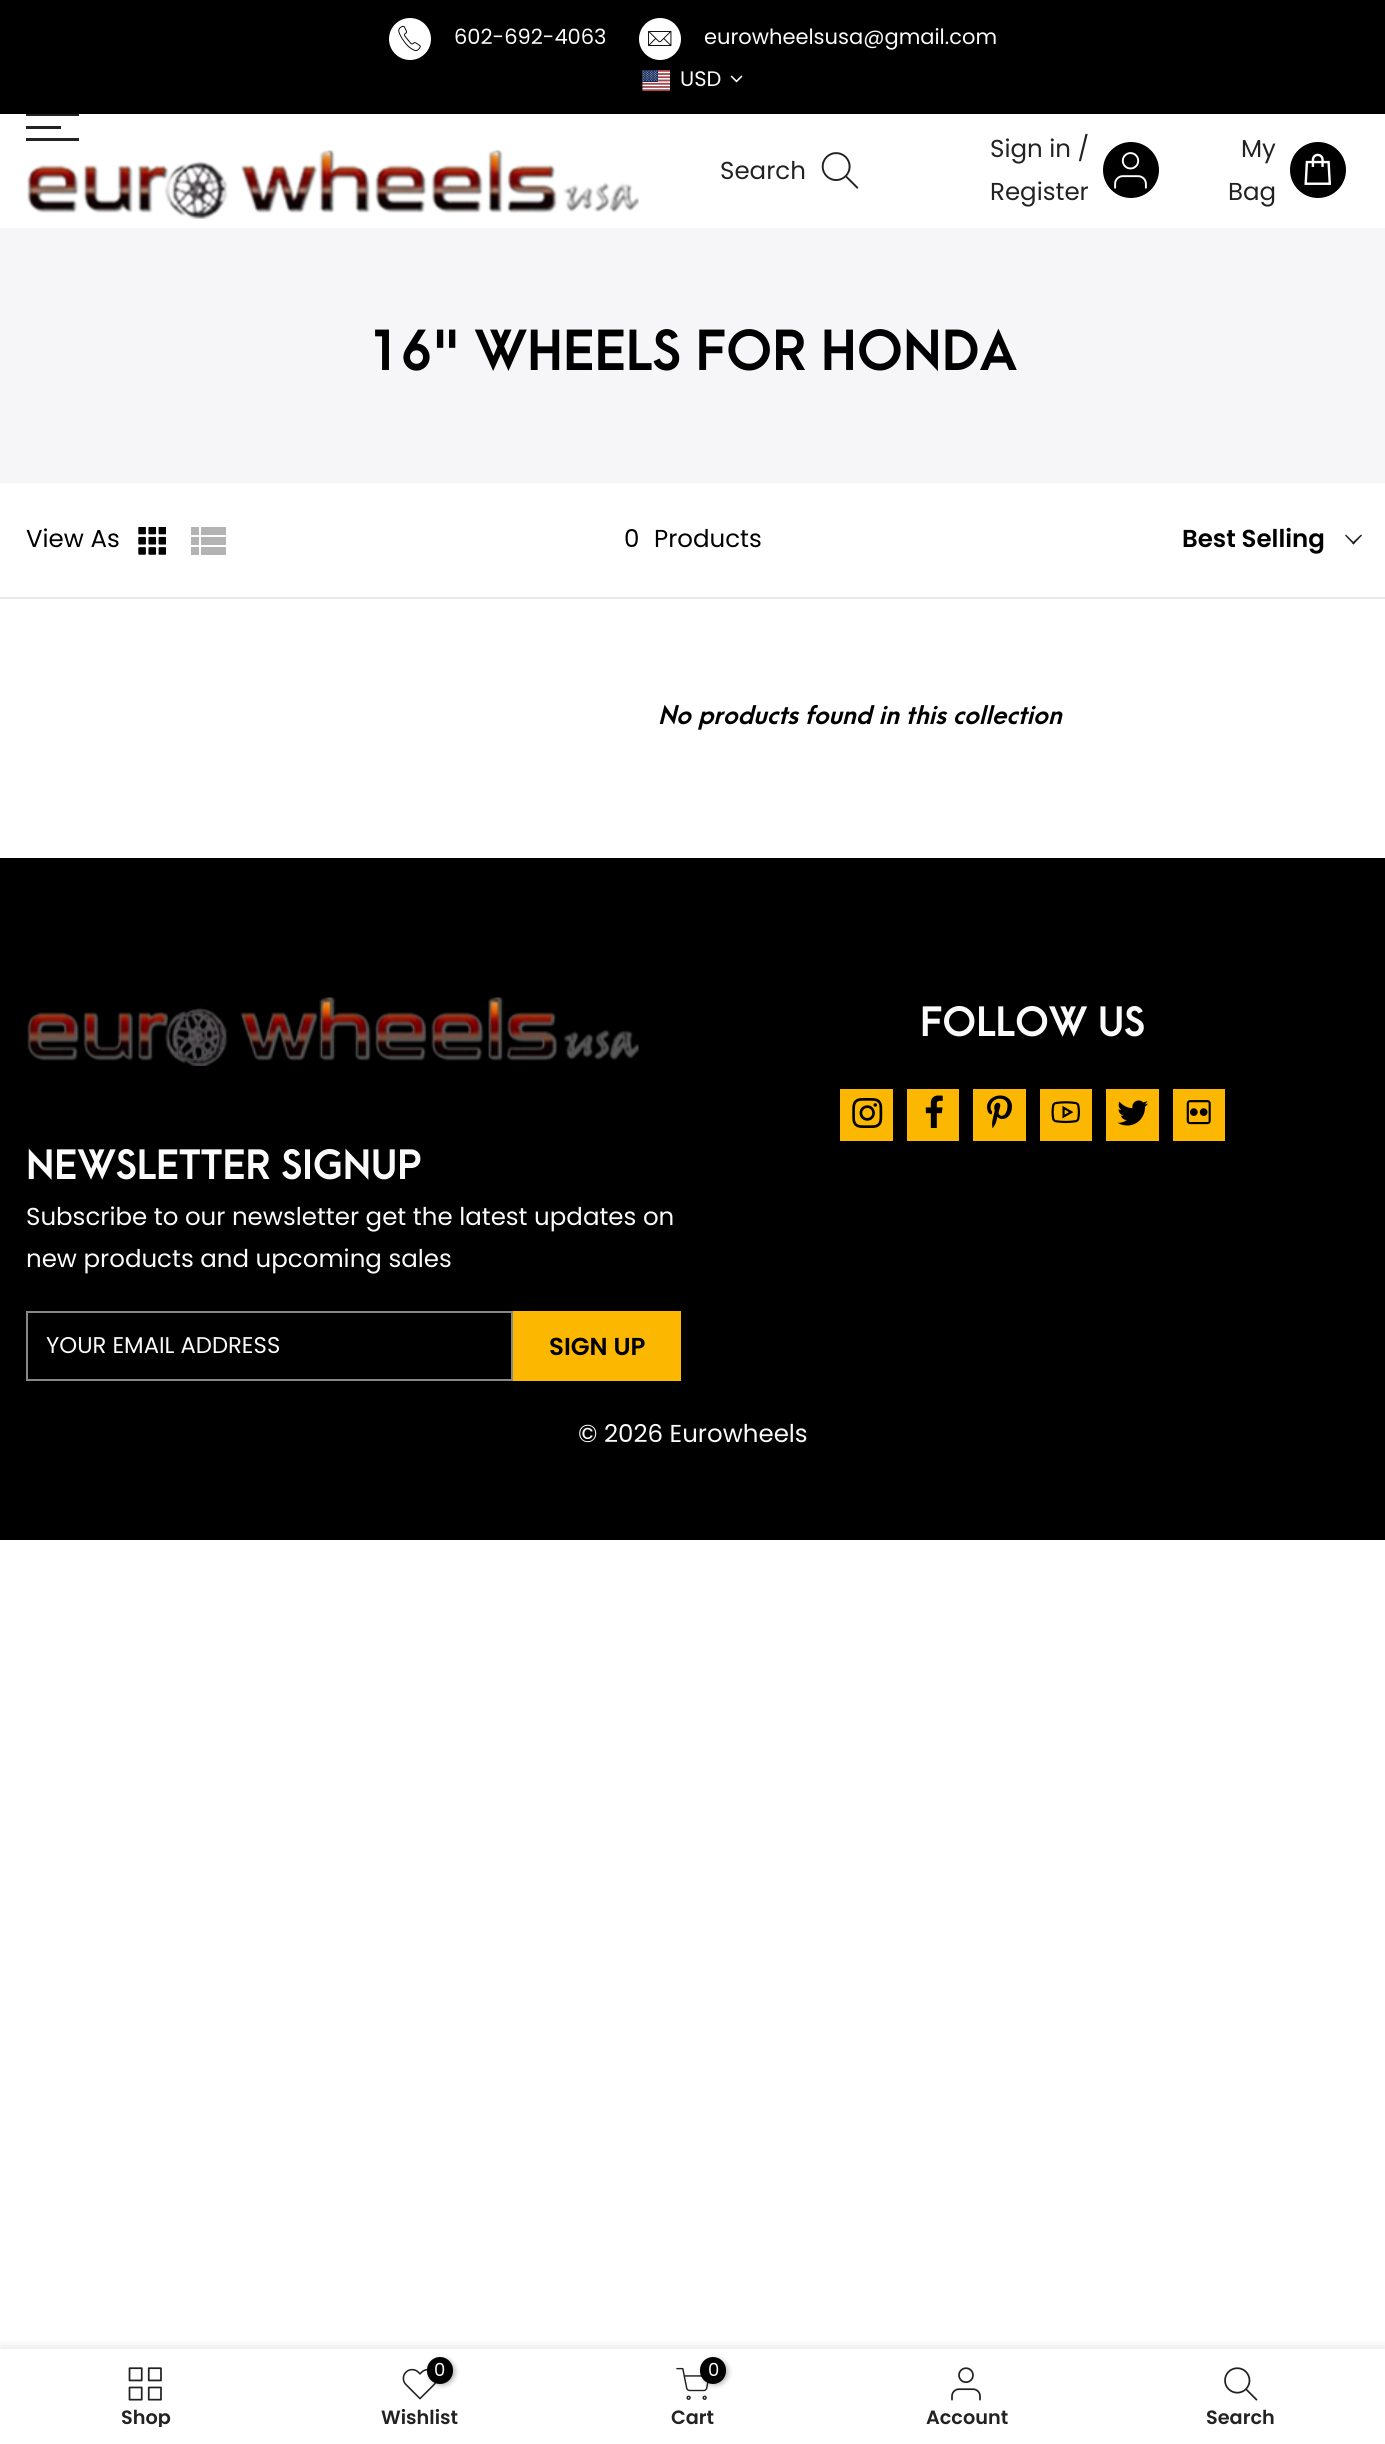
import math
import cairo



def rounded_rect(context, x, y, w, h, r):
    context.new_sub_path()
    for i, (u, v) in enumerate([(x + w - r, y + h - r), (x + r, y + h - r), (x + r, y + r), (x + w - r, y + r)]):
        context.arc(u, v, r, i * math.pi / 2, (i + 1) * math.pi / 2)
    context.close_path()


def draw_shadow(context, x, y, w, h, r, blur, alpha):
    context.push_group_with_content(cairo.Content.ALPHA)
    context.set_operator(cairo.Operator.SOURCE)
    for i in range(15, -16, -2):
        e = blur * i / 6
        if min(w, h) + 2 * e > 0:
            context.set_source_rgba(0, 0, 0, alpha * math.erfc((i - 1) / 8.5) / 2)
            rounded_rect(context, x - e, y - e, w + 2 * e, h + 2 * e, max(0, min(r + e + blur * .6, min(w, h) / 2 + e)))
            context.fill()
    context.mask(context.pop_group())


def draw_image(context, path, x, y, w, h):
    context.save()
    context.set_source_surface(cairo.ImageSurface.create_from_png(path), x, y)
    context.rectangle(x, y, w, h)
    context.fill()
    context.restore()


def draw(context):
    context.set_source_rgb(1, 1, 1)
    context.paint()
    context.set_source_rgb(0, 0, 0)
    context.rectangle(0, 0, 1385, 114)
    context.fill()
    context.set_source_rgb(1, 1, 1)
    context.arc(410, 39, 21, 0, 2 * math.pi)
    context.fill()
    draw_image(context, "images/1.png", 398, 25, 23, 26)
    context.arc(660, 39, 21, 0, 2 * math.pi)
    context.fill()
    draw_image(context, "images/2.png", 648, 31, 24, 15)
    draw_image(context, "images/3.png", 642, 70, 28, 21)
    draw_image(context, "images/4.png", 730, 75, 13, 8)
    context.set_source_rgb(34 / 255, 34 / 255, 34 / 255)
    context.rectangle(26, 114, 53, 2)
    context.fill()
    context.rectangle(26, 126, 35, 3)
    context.fill()
    context.rectangle(26, 138, 53, 3)
    context.fill()
    draw_image(context, "images/5.png", 27, 149, 612, 70)
    draw_image(context, "images/6.png", 821, 152, 38, 37)
    context.set_source_rgb(0, 0, 0)
    context.arc(1131, 170, 28, 0, 2 * math.pi)
    context.fill()
    draw_image(context, "images/7.png", 1114, 152, 33, 37)
    context.arc(1318, 170, 28, 0, 2 * math.pi)
    context.fill()
    draw_image(context, "images/8.png", 1304, 153, 28, 32)
    context.set_source_rgb(246 / 255, 246 / 255, 248 / 255)
    context.rectangle(0, 228, 1385, 255)
    context.fill()
    context.set_source_rgb(232 / 255, 233 / 255, 235 / 255)
    context.rectangle(0, 597, 1385, 2)
    context.fill()
    draw_image(context, "images/9.png", 138, 527, 28, 28)
    context.set_source_rgb(179 / 255, 179 / 255, 179 / 255)
    context.rectangle(191, 527, 8, 8)
    context.fill()
    context.rectangle(201, 527, 25, 8)
    context.fill()
    context.rectangle(191, 537, 8, 8)
    context.fill()
    context.rectangle(201, 537, 25, 8)
    context.fill()
    context.rectangle(191, 547, 8, 8)
    context.fill()
    context.rectangle(201, 547, 25, 8)
    context.fill()
    context.set_source_rgb(34 / 255, 34 / 255, 34 / 255)
    context.new_path()
    context.move_to(1361, 534.5)
    context.line_to(1362, 535.5)
    context.line_to(1353.5, 544.5)
    context.line_to(1352, 543)
    context.close_path()
    context.fill()
    context.new_path()
    context.move_to(1346, 534.5)
    context.line_to(1354.5, 543)
    context.line_to(1353.5, 544.5)
    context.line_to(1345, 535.5)
    context.close_path()
    context.fill()
    context.set_source_rgb(0, 0, 0)
    context.rectangle(0, 858, 1385, 682)
    context.fill()
    draw_image(context, "images/10.png", 27, 997, 612, 69)
    context.set_source_rgb(252 / 255, 184 / 255, 0)
    context.rectangle(840, 1089, 53, 52)
    context.fill()
    draw_image(context, "images/11.png", 852, 1098, 31, 30)
    context.rectangle(907, 1089, 52, 52)
    context.fill()
    draw_image(context, "images/12.png", 925, 1095, 18, 33)
    context.rectangle(973, 1089, 53, 52)
    context.fill()
    draw_image(context, "images/13.png", 987, 1095, 25, 33)
    context.rectangle(1040, 1089, 52, 52)
    context.fill()
    draw_image(context, "images/14.png", 1051, 1101, 29, 23)
    context.rectangle(1106, 1089, 53, 52)
    context.fill()
    draw_image(context, "images/15.png", 1117, 1100, 31, 26)
    context.rectangle(1173, 1089, 52, 52)
    context.fill()
    draw_image(context, "images/16.png", 1186, 1100, 25, 25)
    context.rectangle(27, 1312, 485, 68)
    context.set_source_rgb(135 / 255, 135 / 255, 135 / 255)
    context.stroke()
    context.set_source_rgb(252 / 255, 184 / 255, 0)
    context.rectangle(513, 1311, 168, 70)
    context.fill()
    context.save()
    context.rectangle(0, 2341, 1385, 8)
    context.clip()
    context.set_source_rgb(0, 0, 0)
    draw_shadow(context, 0, 2349, 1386, 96, 0, 8, 0.12)
    context.restore()
    draw_image(context, "images/17.png", 128, 2367, 34, 34)
    draw_image(context, "images/18.png", 402, 2368, 35, 32)
    context.set_source_rgb(0, 0, 0)
    draw_shadow(context, 429, 2359, 26, 26, 13, 2.5, 0.3)
    context.set_source_rgb(0, 0, 0)
    rounded_rect(context, 427, 2357, 26, 27, 13)
    context.fill()
    draw_image(context, "images/19.png", 676, 2367, 33, 33)
    context.set_source_rgb(0, 0, 0)
    draw_shadow(context, 702, 2359, 26, 26, 13, 2.5, 0.3)
    context.set_source_rgb(0, 0, 0)
    rounded_rect(context, 700, 2357, 26, 27, 13)
    context.fill()
    draw_image(context, "images/20.png", 951, 2367, 30, 34)
    draw_image(context, "images/21.png", 1224, 2367, 34, 34)
    context.select_font_face("Poppins")
    context.set_font_size(21)
    context.set_source_rgb(250 / 255, 250 / 255, 250 / 255)
    context.move_to(454, 44)
    context.show_text("602-692-4063")
    context.move_to(704, 44)
    context.show_text("eurowheelsusa@gmail.com")
    context.move_to(680, 86)
    context.show_text("USD")
    context.set_font_size(24.5)
    context.set_source_rgb(34 / 255, 34 / 255, 34 / 255)
    context.move_to(720, 179)
    context.show_text("Search")
    context.move_to(990, 157)
    context.show_text("Sign in /")
    context.move_to(990, 200)
    context.show_text("Register")
    context.move_to(1241, 157)
    context.show_text("My")
    context.move_to(1228, 200)
    context.show_text("Bag")
    context.select_font_face("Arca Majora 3", cairo.FontSlant.NORMAL, cairo.FontWeight.BOLD)
    context.set_font_size(52.5)
    context.set_source_rgb(0, 0, 0)
    context.move_to(370, 370)
    context.show_text("16\" WHEELS FOR HONDA")
    context.select_font_face("Poppins")
    context.set_font_size(24.5)
    context.move_to(26, 547)
    context.show_text("View As")
    context.move_to(624, 547)
    context.show_text("0")
    context.move_to(654, 547)
    context.show_text("Products")
    context.select_font_face("Poppins SemiBold")
    context.move_to(1182, 547)
    context.show_text("Best Selling")
    context.select_font_face("Arca Majora 3", cairo.FontSlant.ITALIC, cairo.FontWeight.BOLD)
    context.move_to(658, 724)
    context.show_text("No products found in this collection")
    context.select_font_face("Arca Majora 3", cairo.FontSlant.NORMAL, cairo.FontWeight.BOLD)
    context.set_font_size(38.5)
    context.set_source_rgb(250 / 255, 250 / 255, 250 / 255)
    context.move_to(920, 1036)
    context.show_text("FOLLOW US")
    context.move_to(26, 1179)
    context.show_text("NEWSLETTER SIGNUP")
    context.select_font_face("Poppins")
    context.set_font_size(24.5)
    context.move_to(26, 1225)
    context.show_text("Subscribe to our newsletter get the latest updates on")
    context.move_to(26, 1267)
    context.show_text("new products and upcoming sales")
    context.set_font_size(22.75)
    context.move_to(46, 1353)
    context.show_text("YOUR EMAIL ADDRESS")
    context.select_font_face("Poppins SemiBold")
    context.set_font_size(24.5)
    context.set_source_rgb(0, 0, 0)
    context.move_to(549, 1355)
    context.show_text("SIGN UP")
    context.select_font_face("Poppins")
    context.set_source_rgb(250 / 255, 250 / 255, 250 / 255)
    context.move_to(578, 1442)
    context.show_text("© 2026 Eurowheels")
    context.save()
    context.rectangle(26, 2408, 238, 19)
    context.clip()
    context.select_font_face("Poppins SemiBold")
    context.set_font_size(19.25)
    context.set_source_rgb(34 / 255, 34 / 255, 34 / 255)
    context.move_to(121, 2424)
    context.show_text("Shop")
    context.restore()
    context.set_font_size(18)
    context.move_to(434, 2376)
    context.show_text("0")
    context.select_font_face("Poppins SemiBold")
    context.set_font_size(19.25)
    context.set_source_rgb(34 / 255, 34 / 255, 34 / 255)
    context.move_to(381, 2424)
    context.show_text("Wishlist")
    context.select_font_face("Poppins")
    context.set_font_size(18)
    context.set_source_rgb(250 / 255, 250 / 255, 250 / 255)
    context.move_to(708, 2376)
    context.show_text("0")
    context.select_font_face("Poppins SemiBold")
    context.set_font_size(19.25)
    context.set_source_rgb(34 / 255, 34 / 255, 34 / 255)
    context.move_to(671, 2424)
    context.show_text("Cart")
    context.move_to(926, 2424)
    context.show_text("Account")
    context.move_to(1206, 2424)
    context.show_text("Search")


surface = cairo.ImageSurface(cairo.Format.RGB24, 1385, 2444)
context = cairo.Context(surface)
options = cairo.FontOptions()
options.set_hint_metrics(cairo.HintMetrics.OFF)
options.set_hint_style(cairo.HintStyle.NONE)
context.set_font_options(options)
context.set_miter_limit(4)
draw(context)
surface.write_to_png("out.png")
